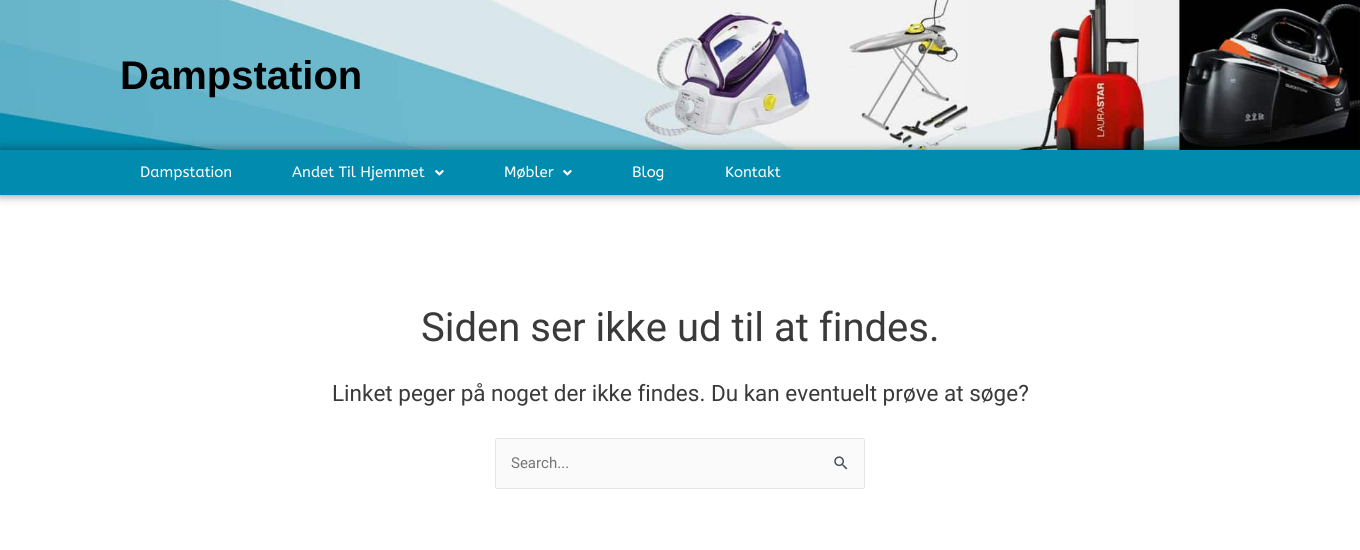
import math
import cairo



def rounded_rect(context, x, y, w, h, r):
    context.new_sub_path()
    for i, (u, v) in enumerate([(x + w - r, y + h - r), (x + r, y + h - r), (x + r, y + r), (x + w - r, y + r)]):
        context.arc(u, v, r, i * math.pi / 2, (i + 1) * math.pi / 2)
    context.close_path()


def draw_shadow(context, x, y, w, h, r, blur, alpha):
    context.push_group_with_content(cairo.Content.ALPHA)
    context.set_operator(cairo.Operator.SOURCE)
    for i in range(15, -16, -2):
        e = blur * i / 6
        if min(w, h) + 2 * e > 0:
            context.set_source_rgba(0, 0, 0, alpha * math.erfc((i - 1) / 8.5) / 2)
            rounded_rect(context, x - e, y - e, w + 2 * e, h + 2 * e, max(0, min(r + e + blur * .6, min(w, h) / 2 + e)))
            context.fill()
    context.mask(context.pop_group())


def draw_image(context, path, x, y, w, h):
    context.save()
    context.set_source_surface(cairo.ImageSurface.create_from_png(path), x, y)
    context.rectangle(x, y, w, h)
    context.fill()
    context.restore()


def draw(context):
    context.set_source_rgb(1, 1, 1)
    context.paint()
    draw_image(context, "images/1.png", 0, 0, 1360, 150)
    context.set_source_rgb(0, 0, 0)
    draw_shadow(context, 0, 150, 1360, 45, 0, 5, 0.5)
    context.set_source_rgb(0, 139 / 255, 175 / 255)
    context.rectangle(0, 150, 1360, 45)
    context.fill()
    draw_image(context, "images/2.png", 435, 170, 9, 6)
    draw_image(context, "images/2.png", 563, 170, 9, 6)
    context.set_source_rgb(250 / 255, 250 / 255, 250 / 255)
    rounded_rect(context, 495.5, 438.5, 369, 50, 1.5)
    context.fill_preserve()
    context.set_source_rgb(229 / 255, 229 / 255, 229 / 255)
    context.set_line_width(1)
    context.stroke()
    draw_image(context, "images/3.png", 834, 456, 14, 14)
    context.select_font_face("Liberation Sans", cairo.FontSlant.NORMAL, cairo.FontWeight.BOLD)
    context.set_font_size(40)
    context.set_source_rgb(0, 0, 0)
    context.move_to(120, 89)
    context.show_text("Dampstation")
    context.select_font_face("ABeeZee")
    context.set_font_size(15)
    context.set_source_rgb(1, 1, 1)
    context.move_to(140, 177)
    context.show_text("Dampstation")
    context.move_to(292, 177)
    context.show_text("Andet Til Hjemmet")
    context.move_to(504, 177)
    context.show_text("Møbler")
    context.move_to(632, 177)
    context.show_text("Blog")
    context.move_to(725, 177)
    context.show_text("Kontakt")
    context.select_font_face("Roboto")
    context.set_font_size(40)
    context.set_source_rgb(58 / 255, 58 / 255, 58 / 255)
    context.move_to(421, 341)
    context.show_text("Siden ser ikke ud til at findes.")
    context.set_font_size(22.5)
    context.move_to(332, 401)
    context.show_text("Linket peger på noget der ikke findes. Du kan eventuelt prøve at søge?")
    context.set_font_size(15)
    context.set_source_rgb(117 / 255, 117 / 255, 117 / 255)
    context.move_to(511, 468)
    context.show_text("Search...")


surface = cairo.ImageSurface(cairo.Format.RGB24, 1360, 550)
context = cairo.Context(surface)
options = cairo.FontOptions()
options.set_hint_metrics(cairo.HintMetrics.OFF)
options.set_hint_style(cairo.HintStyle.NONE)
context.set_font_options(options)
context.set_miter_limit(4)
draw(context)
surface.write_to_png("out.png")
